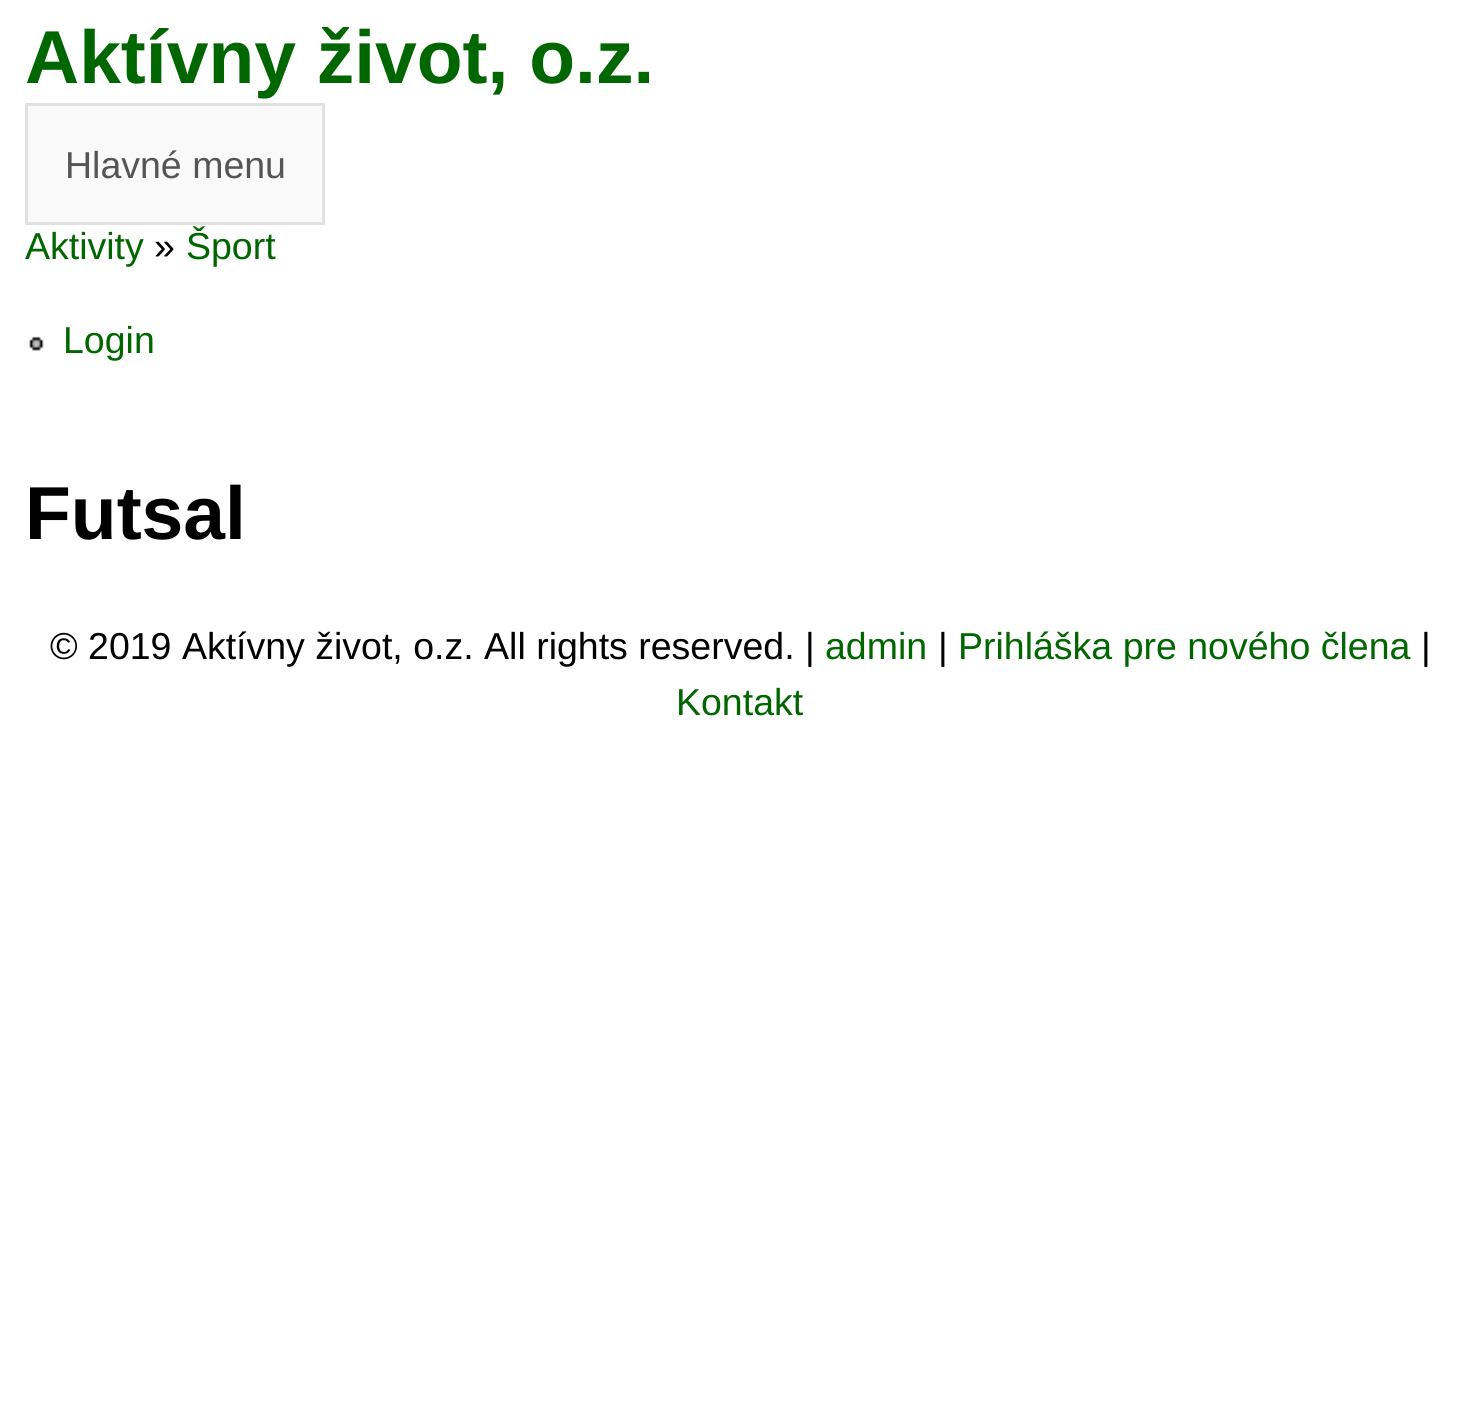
import math
import cairo



def draw_image(context, path, x, y, w, h):
    context.save()
    context.set_source_surface(cairo.ImageSurface.create_from_png(path), x, y)
    context.rectangle(x, y, w, h)
    context.fill()
    context.restore()


def draw(context):
    context.set_source_rgb(1, 1, 1)
    context.paint()
    context.set_source_rgb(249 / 255, 249 / 255, 249 / 255)
    context.rectangle(26.5, 104.5, 297, 119)
    context.fill_preserve()
    context.set_source_rgb(225 / 255, 225 / 255, 225 / 255)
    context.set_line_width(3)
    context.stroke()
    draw_image(context, "images/1.png", 29, 336, 15, 15)
    context.select_font_face("Liberation Sans", cairo.FontSlant.NORMAL, cairo.FontWeight.BOLD)
    context.set_font_size(75)
    context.set_source_rgb(0, 102 / 255, 0)
    context.move_to(25, 83)
    context.show_text("Aktívny život, o.z.")
    context.select_font_face("Liberation Sans")
    context.set_font_size(37.5)
    context.set_source_rgb(85 / 255, 85 / 255, 85 / 255)
    context.move_to(65, 178)
    context.show_text("Hlavné menu")
    context.set_source_rgb(0, 102 / 255, 0)
    context.move_to(25, 259)
    context.show_text("Aktivity")
    context.set_source_rgb(0, 0, 0)
    context.move_to(154, 259)
    context.show_text("»")
    context.set_source_rgb(0, 102 / 255, 0)
    context.move_to(186, 259)
    context.show_text("Šport")
    context.move_to(63, 353)
    context.show_text("Login")
    context.select_font_face("Liberation Sans", cairo.FontSlant.NORMAL, cairo.FontWeight.BOLD)
    context.set_font_size(75)
    context.set_source_rgb(0, 0, 0)
    context.move_to(25, 539)
    context.show_text("Futsal")
    context.select_font_face("Liberation Sans")
    context.set_font_size(37.5)
    context.move_to(50, 659)
    context.show_text("© 2019 Aktívny život, o.z. All rights reserved. |")
    context.set_source_rgb(0, 102 / 255, 0)
    context.move_to(825, 659)
    context.show_text("admin")
    context.set_source_rgb(0, 0, 0)
    context.move_to(938, 659)
    context.show_text("|")
    context.set_source_rgb(0, 102 / 255, 0)
    context.move_to(958, 659)
    context.show_text("Prihláška pre nového člena")
    context.set_source_rgb(0, 0, 0)
    context.move_to(1421, 659)
    context.show_text("|")
    context.set_source_rgb(0, 102 / 255, 0)
    context.move_to(676, 715)
    context.show_text("Kontakt")


surface = cairo.ImageSurface(cairo.Format.RGB24, 1478, 1404)
context = cairo.Context(surface)
options = cairo.FontOptions()
options.set_hint_metrics(cairo.HintMetrics.OFF)
options.set_hint_style(cairo.HintStyle.NONE)
context.set_font_options(options)
context.set_miter_limit(4)
draw(context)
surface.write_to_png("out.png")
